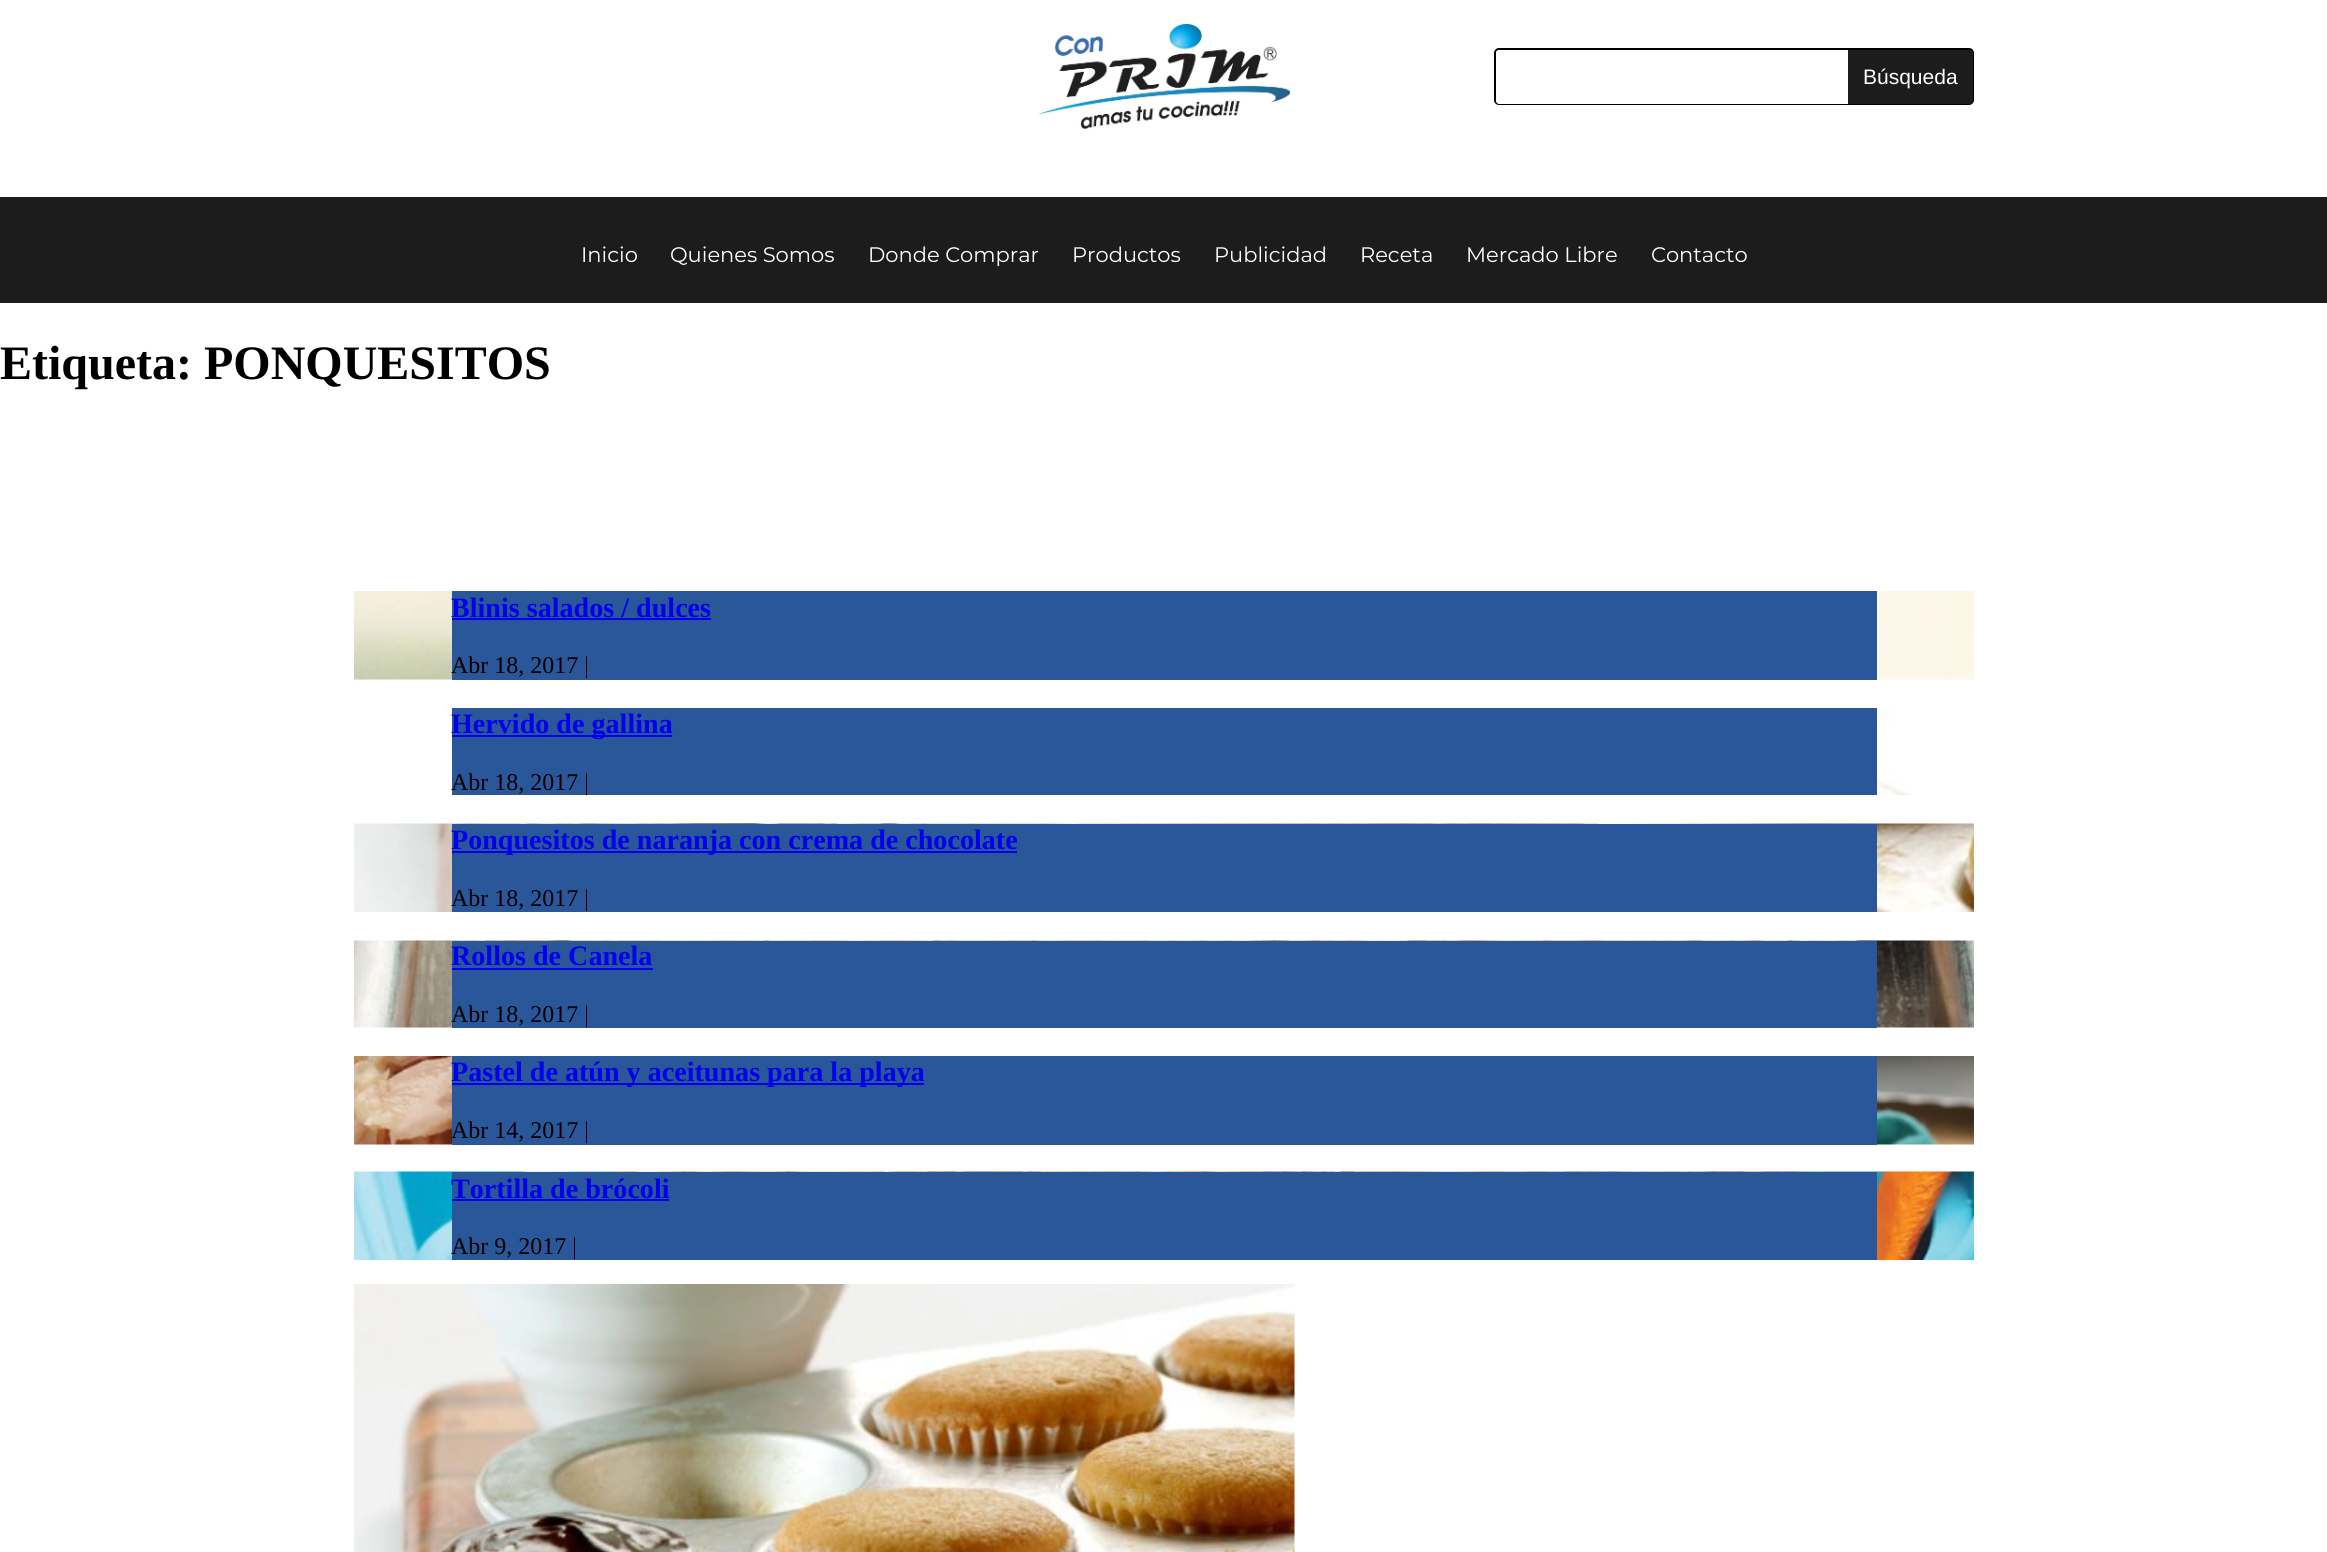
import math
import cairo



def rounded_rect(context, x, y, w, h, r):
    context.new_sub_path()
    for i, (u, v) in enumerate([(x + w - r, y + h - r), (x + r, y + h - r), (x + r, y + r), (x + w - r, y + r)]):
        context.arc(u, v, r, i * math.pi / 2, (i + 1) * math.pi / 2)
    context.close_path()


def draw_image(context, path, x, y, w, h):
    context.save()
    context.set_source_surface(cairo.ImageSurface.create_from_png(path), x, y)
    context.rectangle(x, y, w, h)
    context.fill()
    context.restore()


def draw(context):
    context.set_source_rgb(1, 1, 1)
    context.paint()
    draw_image(context, "images/1.png", 1038, 24, 252, 105)
    rounded_rect(context, 1495, 49, 478, 55, 4)
    context.set_source_rgb(0, 0, 0)
    context.stroke()
    context.set_source_rgb(1, 1, 1)
    context.new_path()
    context.move_to(1499, 50)
    context.line_to(1848, 50)
    context.line_to(1848, 104)
    context.line_to(1499, 104)
    context.curve_to(1497.5, 104, 1496, 102.5, 1496, 101)
    context.line_to(1496, 53)
    context.curve_to(1496, 51.5, 1497.5, 50, 1499, 50)
    context.close_path()
    context.fill()
    context.set_source_rgb(28 / 255, 28 / 255, 28 / 255)
    context.new_path()
    context.move_to(1848, 50)
    context.line_to(1970, 50)
    context.curve_to(1971.5, 50, 1973, 51.5, 1973, 53)
    context.line_to(1973, 101)
    context.curve_to(1973, 102.5, 1971.5, 104, 1970, 104)
    context.line_to(1848, 104)
    context.close_path()
    context.fill()
    context.rectangle(0, 197, 2327, 106)
    context.fill()
    draw_image(context, "images/2.png", 354, 591, 1620, 89)
    context.set_source_rgb(41 / 255, 87 / 255, 154 / 255)
    context.rectangle(452, 591, 1425, 89)
    context.fill()
    context.set_source_rgb(0, 0, 238 / 255)
    context.rectangle(452, 618, 259, 2)
    context.fill()
    draw_image(context, "images/3.png", 445, 708, 1466, 87)
    context.set_source_rgb(41 / 255, 87 / 255, 154 / 255)
    context.rectangle(452, 708, 1425, 87)
    context.fill()
    context.set_source_rgb(0, 0, 238 / 255)
    context.rectangle(452, 735, 220, 2)
    context.fill()
    draw_image(context, "images/4.png", 354, 823, 1620, 89)
    context.set_source_rgb(41 / 255, 87 / 255, 154 / 255)
    context.rectangle(452, 824, 1425, 88)
    context.fill()
    context.set_source_rgb(0, 0, 238 / 255)
    context.rectangle(452, 851, 565, 2)
    context.fill()
    draw_image(context, "images/5.png", 354, 940, 1620, 88)
    context.set_source_rgb(41 / 255, 87 / 255, 154 / 255)
    context.rectangle(452, 941, 1425, 87)
    context.fill()
    context.set_source_rgb(0, 0, 238 / 255)
    context.rectangle(452, 968, 201, 2)
    context.fill()
    draw_image(context, "images/6.png", 354, 1056, 1620, 89)
    context.set_source_rgb(41 / 255, 87 / 255, 154 / 255)
    context.rectangle(452, 1056, 1425, 89)
    context.fill()
    context.set_source_rgb(0, 0, 238 / 255)
    context.rectangle(452, 1083, 472, 2)
    context.fill()
    draw_image(context, "images/7.png", 354, 1171, 1620, 89)
    context.set_source_rgb(41 / 255, 87 / 255, 154 / 255)
    context.rectangle(452, 1172, 1425, 88)
    context.fill()
    context.set_source_rgb(0, 0, 238 / 255)
    context.rectangle(452, 1199, 217, 2)
    context.fill()
    draw_image(context, "images/8.png", 354, 1284, 941, 268)
    context.select_font_face("Liberation Sans")
    context.set_font_size(21)
    context.set_source_rgb(1, 1, 1)
    context.move_to(1863, 84)
    context.show_text("Búsqueda")
    context.select_font_face("Montserrat")
    context.move_to(581, 262)
    context.show_text("Inicio")
    context.move_to(670, 262)
    context.show_text("Quienes Somos")
    context.move_to(868, 262)
    context.show_text("Donde Comprar")
    context.move_to(1072, 262)
    context.show_text("Productos")
    context.move_to(1214, 262)
    context.show_text("Publicidad")
    context.move_to(1360, 262)
    context.show_text("Receta")
    context.move_to(1466, 262)
    context.show_text("Mercado Libre")
    context.move_to(1651, 262)
    context.show_text("Contacto")
    context.select_font_face("Liberation Serif", cairo.FontSlant.NORMAL, cairo.FontWeight.BOLD)
    context.set_font_size(48)
    context.set_source_rgb(0, 0, 0)
    context.move_to(0, 379)
    context.show_text("Etiqueta: PONQUESITOS")
    context.set_font_size(28.1)
    context.set_source_rgb(0, 0, 238 / 255)
    context.move_to(451, 617)
    context.show_text("Blinis salados / dulces")
    context.select_font_face("Liberation Serif")
    context.set_font_size(24)
    context.set_source_rgb(0, 0, 0)
    context.move_to(451, 673)
    context.show_text("Abr 18, 2017 |")
    context.select_font_face("Liberation Serif", cairo.FontSlant.NORMAL, cairo.FontWeight.BOLD)
    context.set_font_size(28.1)
    context.set_source_rgb(0, 0, 238 / 255)
    context.move_to(451, 733)
    context.show_text("Hervido de gallina")
    context.select_font_face("Liberation Serif")
    context.set_font_size(24)
    context.set_source_rgb(0, 0, 0)
    context.move_to(451, 790)
    context.show_text("Abr 18, 2017 |")
    context.select_font_face("Liberation Serif", cairo.FontSlant.NORMAL, cairo.FontWeight.BOLD)
    context.set_font_size(28.1)
    context.set_source_rgb(0, 0, 238 / 255)
    context.move_to(451, 849)
    context.show_text("Ponquesitos de naranja con crema de chocolate")
    context.select_font_face("Liberation Serif")
    context.set_font_size(24)
    context.set_source_rgb(0, 0, 0)
    context.move_to(451, 906)
    context.show_text("Abr 18, 2017 |")
    context.select_font_face("Liberation Serif", cairo.FontSlant.NORMAL, cairo.FontWeight.BOLD)
    context.set_font_size(28.1)
    context.set_source_rgb(0, 0, 238 / 255)
    context.move_to(451, 965)
    context.show_text("Rollos de Canela")
    context.select_font_face("Liberation Serif")
    context.set_font_size(24)
    context.set_source_rgb(0, 0, 0)
    context.move_to(451, 1022)
    context.show_text("Abr 18, 2017 |")
    context.select_font_face("Liberation Serif", cairo.FontSlant.NORMAL, cairo.FontWeight.BOLD)
    context.set_font_size(28.1)
    context.set_source_rgb(0, 0, 238 / 255)
    context.move_to(451, 1081)
    context.show_text("Pastel de atún y aceitunas para la playa")
    context.select_font_face("Liberation Serif")
    context.set_font_size(24)
    context.set_source_rgb(0, 0, 0)
    context.move_to(451, 1138)
    context.show_text("Abr 14, 2017 |")
    context.select_font_face("Liberation Serif", cairo.FontSlant.NORMAL, cairo.FontWeight.BOLD)
    context.set_font_size(28.1)
    context.set_source_rgb(0, 0, 238 / 255)
    context.move_to(451, 1198)
    context.show_text("Tortilla de brócoli")
    context.select_font_face("Liberation Serif")
    context.set_font_size(24)
    context.set_source_rgb(0, 0, 0)
    context.move_to(451, 1254)
    context.show_text("Abr 9, 2017 |")


surface = cairo.ImageSurface(cairo.Format.RGB24, 2327, 1552)
context = cairo.Context(surface)
options = cairo.FontOptions()
options.set_hint_metrics(cairo.HintMetrics.OFF)
options.set_hint_style(cairo.HintStyle.NONE)
context.set_font_options(options)
context.set_miter_limit(4)
draw(context)
surface.write_to_png("out.png")
